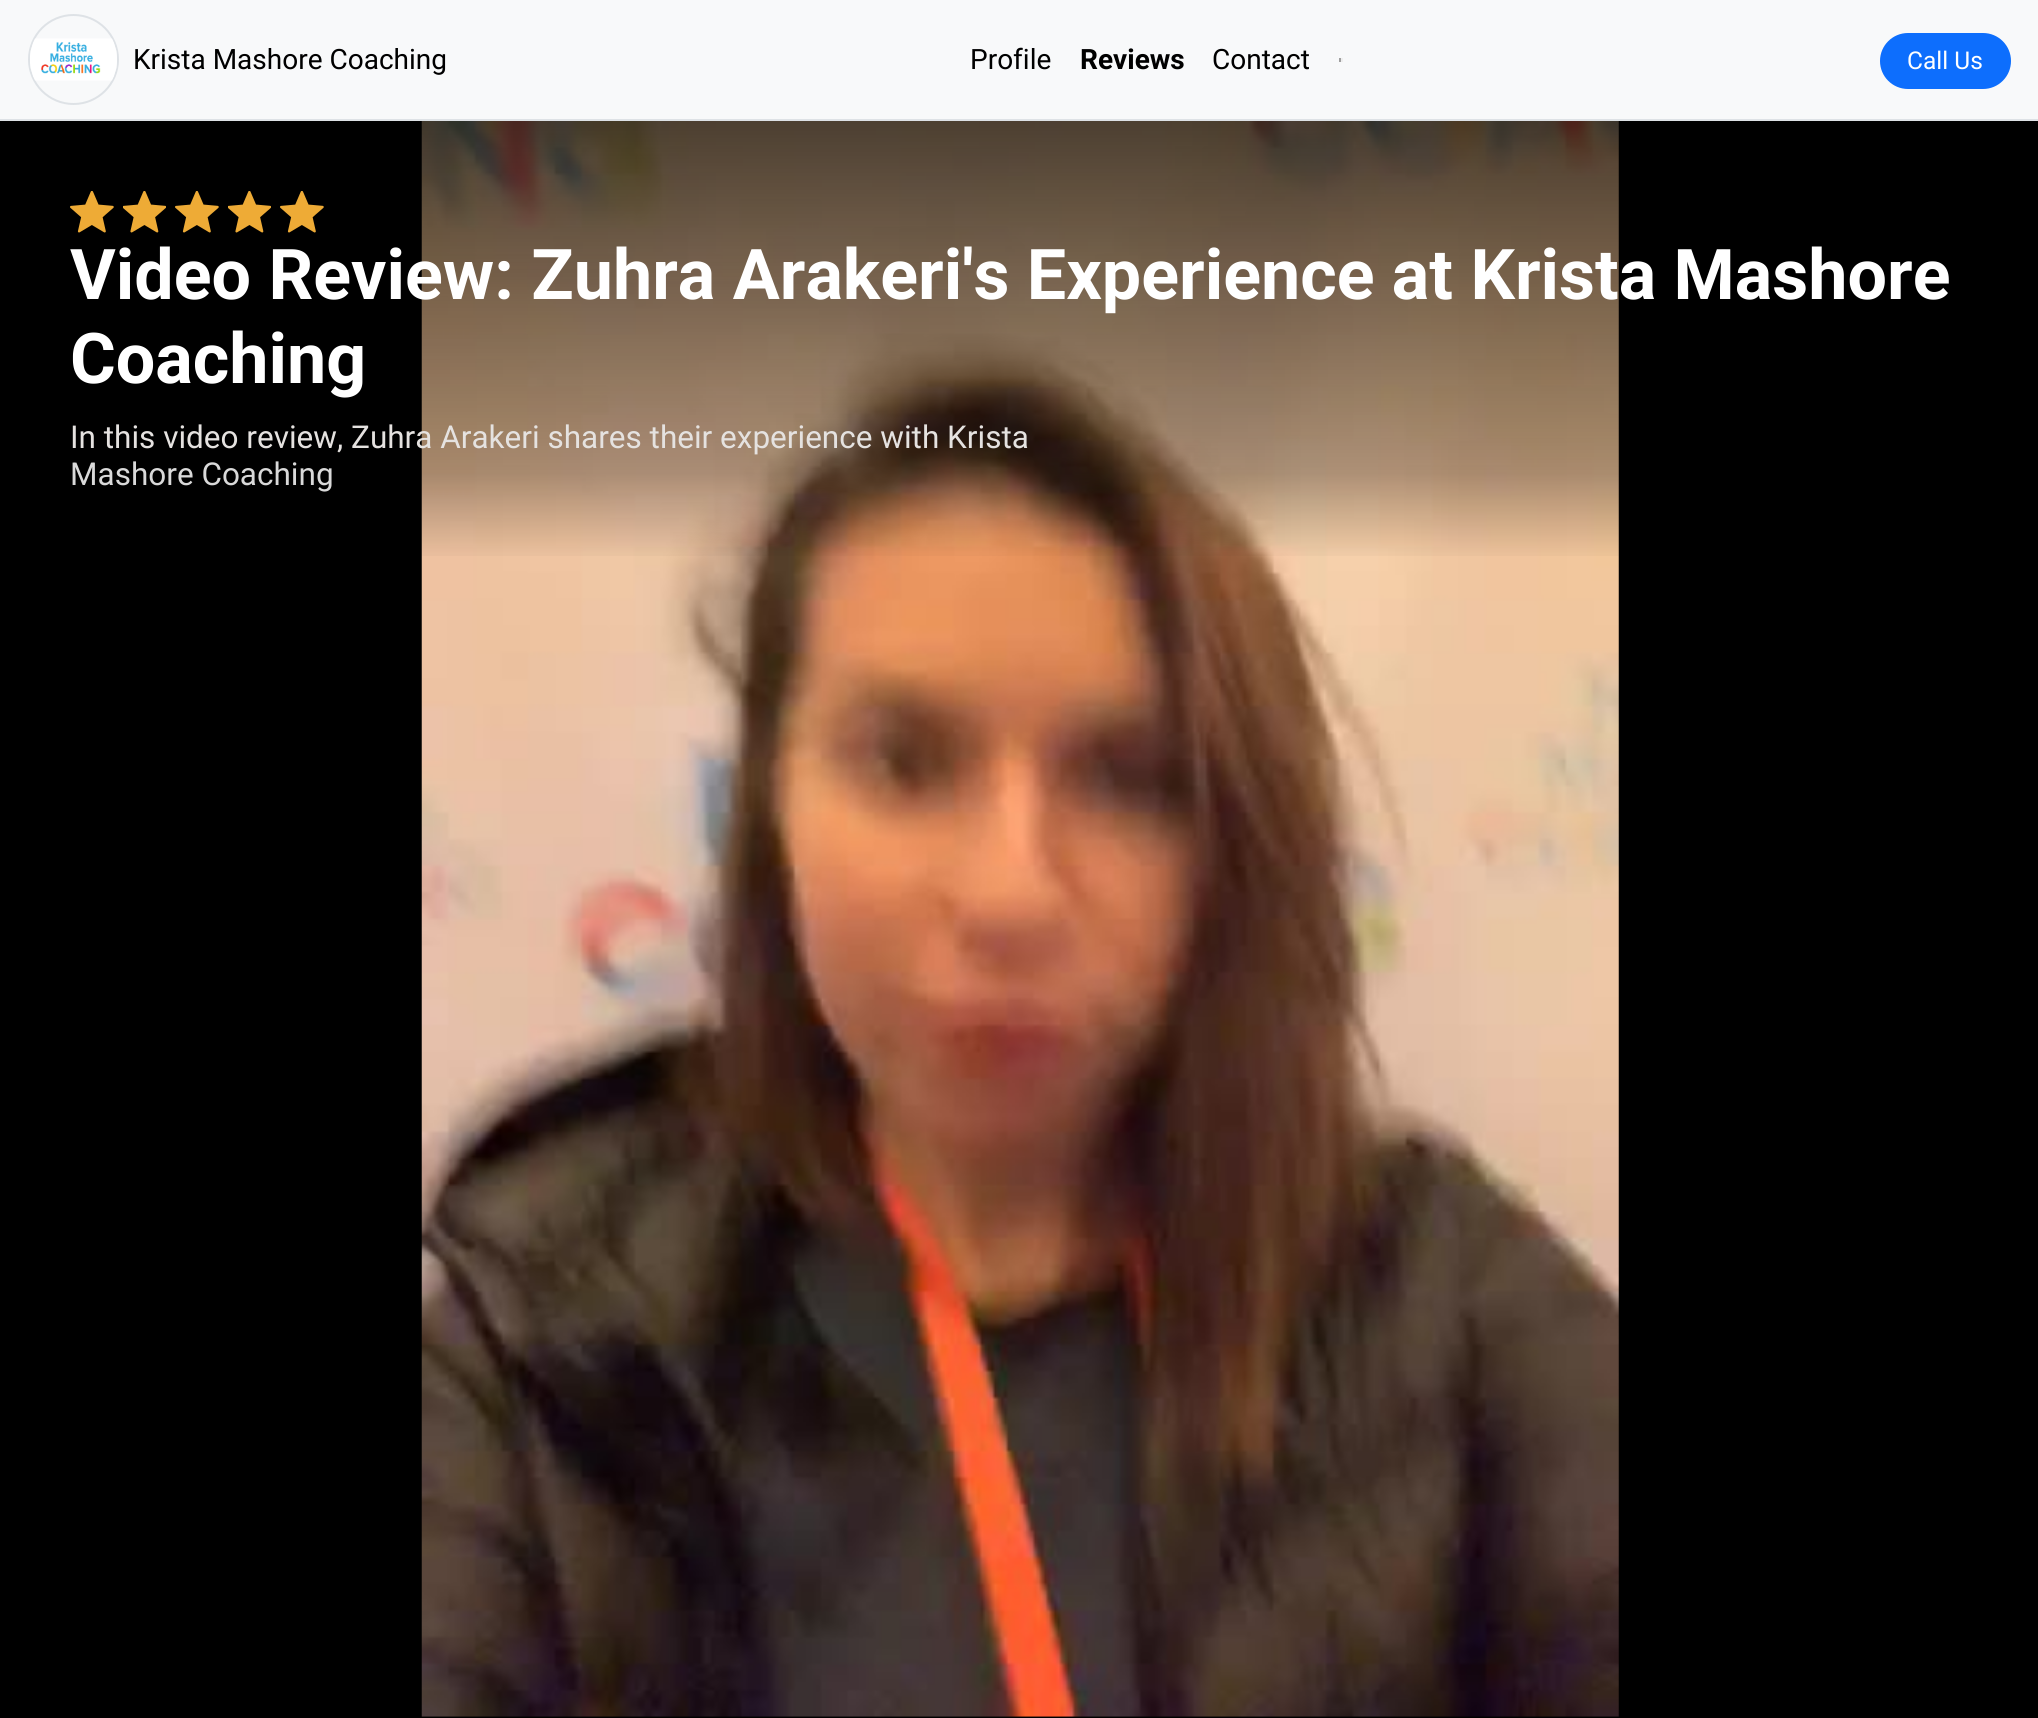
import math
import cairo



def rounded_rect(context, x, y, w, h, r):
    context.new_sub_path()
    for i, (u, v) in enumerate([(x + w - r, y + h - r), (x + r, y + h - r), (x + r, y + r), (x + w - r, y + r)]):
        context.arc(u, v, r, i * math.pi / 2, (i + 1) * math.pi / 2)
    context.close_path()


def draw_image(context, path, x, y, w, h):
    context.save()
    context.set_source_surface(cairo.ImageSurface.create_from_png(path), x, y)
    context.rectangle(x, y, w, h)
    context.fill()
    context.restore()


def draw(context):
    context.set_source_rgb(0, 0, 0)
    context.paint()
    context.set_source_rgb(248 / 255, 249 / 255, 250 / 255)
    context.rectangle(0, 0, 2038, 119)
    context.fill()
    context.set_source_rgb(222 / 255, 226 / 255, 230 / 255)
    context.rectangle(0, 119, 2038, 2)
    context.fill()
    context.arc(73.5, 59.5, 44.5, 0, 2 * math.pi)
    context.stroke()
    draw_image(context, "images/1.png", 30, 38, 87, 43)
    context.set_source_rgb(238 / 255, 238 / 255, 238 / 255)
    context.rectangle(1341, 58, 2, 4)
    context.fill()
    context.rectangle(1339, 60, 4, 2)
    context.fill()
    context.set_source_rgb(159 / 255, 159 / 255, 159 / 255)
    context.rectangle(1339, 58, 2, 4)
    context.fill()
    context.set_source_rgb(13 / 255, 110 / 255, 253 / 255)
    rounded_rect(context, 1880, 33, 131, 56, 28)
    context.fill()
    draw_image(context, "images/2.png", 421, 121, 1198, 1596)
    gradient = cairo.LinearGradient(1019, 121, 1019, 562)
    gradient.add_color_stop_rgba(0, 0, 0, 0, 0.7)
    gradient.add_color_stop_rgba(0.8, 0, 0, 0, 0.3)
    gradient.add_color_stop_rgba(1, 0, 0, 0, 0)
    context.set_source(gradient)
    context.rectangle(421, 121, 1198, 435)
    context.fill()
    draw_image(context, "images/3.png", 70, 191, 44, 42)
    draw_image(context, "images/4.png", 123, 191, 43, 42)
    draw_image(context, "images/3.png", 175, 191, 44, 42)
    draw_image(context, "images/4.png", 228, 191, 43, 42)
    draw_image(context, "images/3.png", 280, 191, 44, 42)
    context.select_font_face("Roboto")
    context.set_font_size(28)
    context.set_source_rgb(0, 0, 0)
    context.move_to(133, 69)
    context.show_text("Krista Mashore Coaching")
    context.move_to(970, 69)
    context.show_text("Profile")
    context.select_font_face("Roboto", cairo.FontSlant.NORMAL, cairo.FontWeight.BOLD)
    context.move_to(1080, 69)
    context.show_text("Reviews")
    context.select_font_face("Roboto")
    context.move_to(1212, 69)
    context.show_text("Contact")
    context.set_font_size(24.5)
    context.set_source_rgb(1, 1, 1)
    context.move_to(1907, 69)
    context.show_text("Call Us")
    context.select_font_face("Roboto", cairo.FontSlant.NORMAL, cairo.FontWeight.BOLD)
    context.set_font_size(70)
    context.move_to(70, 299)
    context.show_text("Video Review: Zuhra Arakeri's Experience at Krista Mashore")
    context.move_to(70, 383)
    context.show_text("Coaching")
    context.select_font_face("Roboto")
    context.set_font_size(31.5)
    context.set_source_rgb(229 / 255, 226 / 255, 224 / 255)
    context.move_to(70, 448)
    context.show_text("In this video review, Zuhra Arakeri shares their experience with Krista")
    context.set_source_rgb(217 / 255, 217 / 255, 217 / 255)
    context.move_to(70, 485)
    context.show_text("Mashore Coaching")


surface = cairo.ImageSurface(cairo.Format.RGB24, 2038, 1718)
context = cairo.Context(surface)
options = cairo.FontOptions()
options.set_hint_metrics(cairo.HintMetrics.OFF)
options.set_hint_style(cairo.HintStyle.NONE)
context.set_font_options(options)
context.set_miter_limit(4)
draw(context)
surface.write_to_png("out.png")
